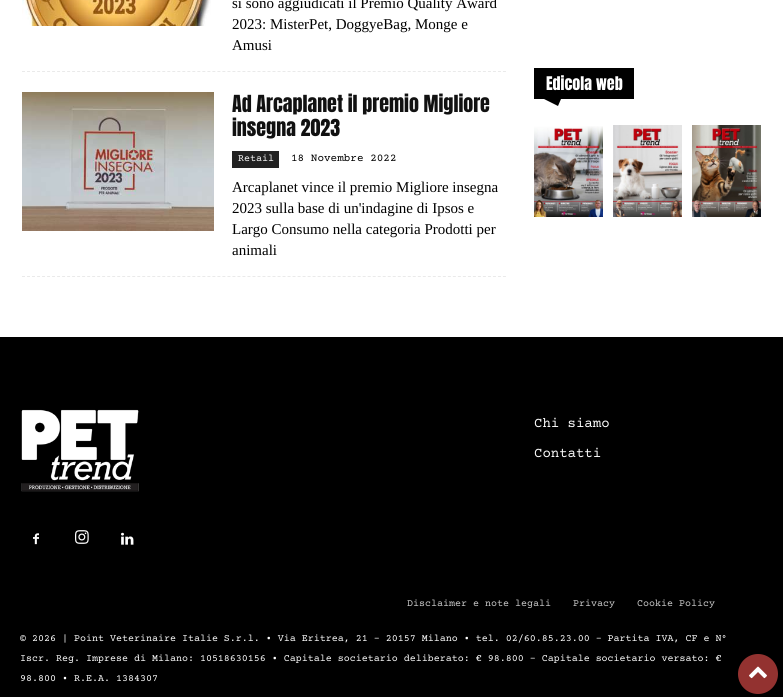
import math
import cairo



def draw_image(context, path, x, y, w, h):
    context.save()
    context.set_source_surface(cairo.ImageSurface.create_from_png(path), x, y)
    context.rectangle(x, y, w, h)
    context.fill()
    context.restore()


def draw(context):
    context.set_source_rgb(1, 1, 1)
    context.paint()
    context.new_path()
    context.move_to(22, 71.5)
    context.line_to(506, 71.5)
    context.set_source_rgb(234 / 255, 234 / 255, 234 / 255)
    context.set_line_width(1)
    context.set_dash([3, 2.01])
    context.stroke()
    draw_image(context, "images/1.png", 22, 0, 189, 26)
    context.new_path()
    context.move_to(22, 276.5)
    context.line_to(506, 276.5)
    context.stroke()
    draw_image(context, "images/2.png", 22, 92, 192, 139)
    context.set_source_rgb(34 / 255, 34 / 255, 34 / 255)
    context.rectangle(232, 151, 47, 17)
    context.fill()
    context.set_source_rgb(0, 0, 0)
    context.rectangle(534, 68, 100, 31)
    context.fill()
    context.new_path()
    context.move_to(544, 99)
    context.line_to(561, 99)
    context.line_to(558, 106)
    context.close_path()
    context.fill()
    draw_image(context, "images/3.png", 534, 126, 69, 91)
    draw_image(context, "images/4.png", 613, 125, 69, 92)
    draw_image(context, "images/5.png", 692, 125, 69, 92)
    context.rectangle(0, 337, 783, 360)
    context.fill()
    draw_image(context, "images/6.png", 21, 409, 118, 83)
    draw_image(context, "images/7.png", 33, 533, 6, 12)
    draw_image(context, "images/8.png", 75, 530, 14, 14)
    draw_image(context, "images/9.png", 121, 532, 13, 13)
    context.set_source_rgb(147 / 255, 50 / 255, 48 / 255)
    context.arc(758, 674, 20, 0, 2 * math.pi)
    context.fill()
    draw_image(context, "images/10.png", 749, 666, 18, 13)
    context.select_font_face("Liberation Serif")
    context.set_font_size(15)
    context.set_source_rgb(0, 0, 0)
    context.move_to(232, 8)
    context.show_text("si sono aggiudicati il Premio Quality Award")
    context.move_to(232, 29)
    context.show_text("2023: MisterPet, DoggyeBag, Monge e")
    context.move_to(232, 50)
    context.show_text("Amusi")
    context.select_font_face("Anton")
    context.set_font_size(20)
    context.set_source_rgb(17 / 255, 17 / 255, 17 / 255)
    context.move_to(232, 112)
    context.show_text("Ad Arcaplanet il premio Migliore")
    context.move_to(232, 136)
    context.show_text("insegna 2023")
    context.select_font_face("Courier Prime")
    context.set_font_size(10)
    context.set_source_rgb(1, 1, 1)
    context.move_to(238, 161)
    context.show_text("Retail")
    context.set_font_size(11)
    context.set_source_rgb(0, 0, 0)
    context.move_to(291, 161)
    context.show_text("18 Novembre 2022")
    context.select_font_face("Liberation Serif")
    context.set_font_size(15)
    context.move_to(232, 192)
    context.show_text("Arcaplanet vince il premio Migliore insegna")
    context.move_to(232, 213)
    context.show_text("2023 sulla base di un'indagine di Ipsos e")
    context.move_to(232, 234)
    context.show_text("Largo Consumo nella categoria Prodotti per")
    context.move_to(232, 255)
    context.show_text("animali")
    context.select_font_face("Anton")
    context.set_font_size(16)
    context.set_source_rgb(1, 1, 1)
    context.move_to(546, 90)
    context.show_text("Edicola web")
    context.select_font_face("Courier Prime")
    context.set_font_size(14)
    context.move_to(534, 427)
    context.show_text("Chi siamo")
    context.move_to(534, 457)
    context.show_text("Contatti")
    context.set_font_size(10)
    context.set_source_rgb(204 / 255, 204 / 255, 204 / 255)
    context.move_to(407, 606)
    context.show_text("Disclaimer e note legali")
    context.move_to(573, 606)
    context.show_text("Privacy")
    context.move_to(637, 606)
    context.show_text("Cookie Policy")
    context.set_source_rgb(1, 1, 1)
    context.move_to(20, 641)
    context.show_text("© 2026 | Point Veterinaire Italie S.r.l. • Via Eritrea, 21 - 20157 Milano • tel. 02/60.85.23.00 - Partita IVA, CF e N°")
    context.move_to(20, 661)
    context.show_text("Iscr. Reg. Imprese di Milano: 10518630156 • Capitale societario deliberato: € 98.800 - Capitale societario versato: €")
    context.move_to(20, 681)
    context.show_text("98.800 • R.E.A. 1384307")


surface = cairo.ImageSurface(cairo.Format.RGB24, 783, 698)
context = cairo.Context(surface)
options = cairo.FontOptions()
options.set_hint_metrics(cairo.HintMetrics.OFF)
options.set_hint_style(cairo.HintStyle.NONE)
context.set_font_options(options)
context.set_miter_limit(4)
draw(context)
surface.write_to_png("out.png")
